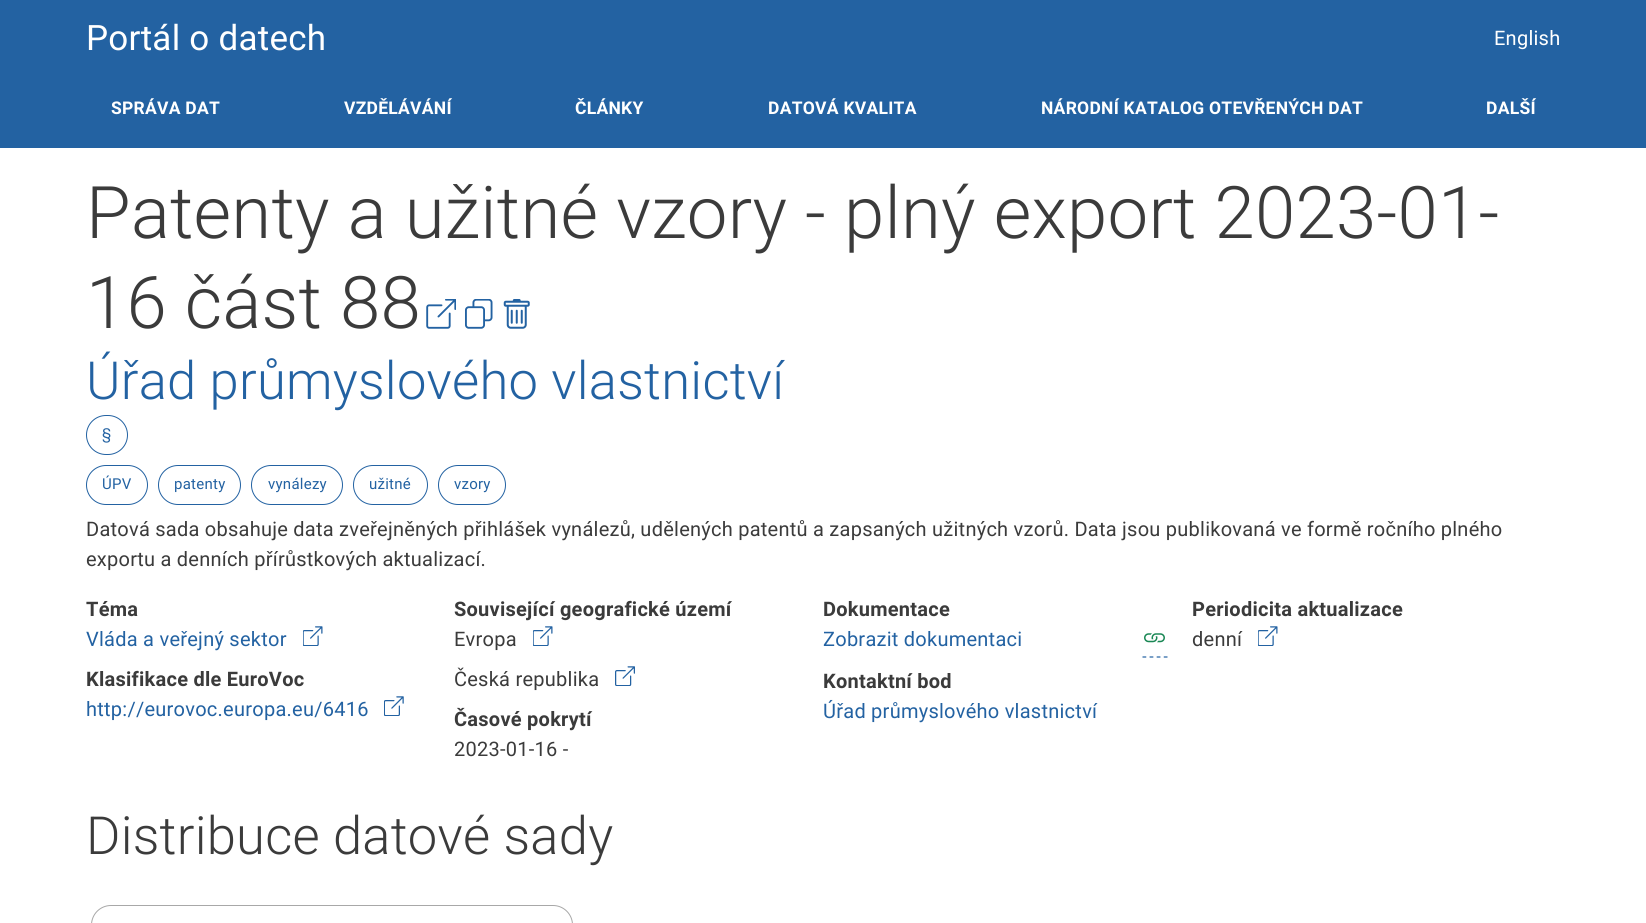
import math
import cairo



def draw_spaced(context, x, y, s, letter, word):
    context.move_to(x, y)
    for ch in s:
        context.show_text(ch)
        context.rel_move_to(letter + word * (ch == ' '), 0)


def rounded_rect(context, x, y, w, h, r):
    context.new_sub_path()
    for i, (u, v) in enumerate([(x + w - r, y + h - r), (x + r, y + h - r), (x + r, y + r), (x + w - r, y + r)]):
        context.arc(u, v, r, i * math.pi / 2, (i + 1) * math.pi / 2)
    context.close_path()


def draw_image(context, path, x, y, w, h):
    context.save()
    context.set_source_surface(cairo.ImageSurface.create_from_png(path), x, y)
    context.rectangle(x, y, w, h)
    context.fill()
    context.restore()


def draw(context):
    context.set_source_rgb(1, 1, 1)
    context.paint()
    context.set_source_rgb(35 / 255, 98 / 255, 162 / 255)
    context.rectangle(0, 0, 1646, 148)
    context.fill()
    draw_image(context, "images/1.png", 426, 299, 30, 30)
    draw_image(context, "images/2.png", 465, 299, 28, 30)
    draw_image(context, "images/3.png", 503, 299, 27, 30)
    rounded_rect(context, 86.5, 415.5, 41, 39, 19.5)
    context.set_line_width(1)
    context.stroke()
    rounded_rect(context, 86.5, 465.5, 61, 39, 19.5)
    context.stroke()
    rounded_rect(context, 158.5, 465.5, 82, 39, 19.5)
    context.stroke()
    rounded_rect(context, 251.5, 465.5, 91, 39, 19.5)
    context.stroke()
    rounded_rect(context, 353.5, 465.5, 74, 39, 19.5)
    context.stroke()
    rounded_rect(context, 438.5, 465.5, 67, 39, 19.5)
    context.stroke()
    draw_image(context, "images/4.png", 303, 626, 20, 20)
    draw_image(context, "images/5.png", 384, 696, 20, 20)
    draw_image(context, "images/4.png", 533, 626, 20, 20)
    draw_image(context, "images/6.png", 615, 666, 20, 20)
    context.new_path()
    context.move_to(1142.5, 657)
    context.line_to(1167.5, 657)
    context.set_line_width(1.2)
    context.set_dash([3.75, 3.34])
    context.stroke()
    draw_image(context, "images/7.png", 1144, 633, 21, 10)
    draw_image(context, "images/4.png", 1258, 626, 20, 20)
    rounded_rect(context, 91.5, 905.5, 481, 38, 19.5)
    context.set_source_rgb(168 / 255, 168 / 255, 168 / 255)
    context.set_line_width(1)
    context.set_dash([])
    context.stroke()
    context.select_font_face("Roboto")
    context.set_font_size(35)
    context.set_source_rgb(1, 1, 1)
    draw_spaced(context, 86, 50, "Portál o datech", 0.25, 0)
    context.set_font_size(20)
    draw_spaced(context, 1494, 45, "English", 0.25, 0)
    context.select_font_face("Roboto", cairo.FontSlant.NORMAL, cairo.FontWeight.BOLD)
    context.set_font_size(17.5)
    draw_spaced(context, 111, 114, "SPRÁVA DAT", 0.25, 0)
    draw_spaced(context, 344, 114, "VZDĚLÁVÁNÍ", 0.25, 0)
    draw_spaced(context, 575, 114, "ČLÁNKY", 0.25, 0)
    draw_spaced(context, 768, 114, "DATOVÁ KVALITA", 0.25, 0)
    draw_spaced(context, 1041, 114, "NÁRODNÍ KATALOG OTEVŘENÝCH DAT", 0.25, 0)
    draw_spaced(context, 1486, 114, "DALŠÍ", 0.25, 0)
    context.select_font_face("Roboto Light")
    context.set_font_size(72.5)
    context.set_source_rgb(59 / 255, 59 / 255, 59 / 255)
    draw_spaced(context, 86, 238, "Patenty a užitné vzory - plný export 2023-01-", 0.25, 0)
    draw_spaced(context, 86, 328, "16 část 88", 0.25, 0)
    context.set_font_size(52.5)
    context.set_source_rgb(35 / 255, 98 / 255, 162 / 255)
    draw_spaced(context, 86, 399, "Úřad průmyslového vlastnictví", 0.25, 0)
    context.select_font_face("Roboto")
    context.set_font_size(15)
    draw_spaced(context, 102, 439, "§", 0.25, 0)
    draw_spaced(context, 102, 489, "ÚPV", 0.25, 0)
    draw_spaced(context, 174, 489, "patenty", 0.25, 0)
    draw_spaced(context, 268, 489, "vynálezy", 0.25, 0)
    draw_spaced(context, 369, 489, "užitné", 0.25, 0)
    draw_spaced(context, 454, 489, "vzory", 0.25, 0)
    context.set_font_size(20)
    context.set_source_rgb(59 / 255, 59 / 255, 59 / 255)
    draw_spaced(context, 86, 536, "Datová sada obsahuje data zveřejněných přihlášek vynálezů, udělených patentů a zapsaných užitných vzorů. Data jsou publikovaná ve formě ročního plného", 0.25, 0)
    draw_spaced(context, 86, 566, "exportu a denních přírůstkových aktualizací.", 0.25, 0)
    context.select_font_face("Roboto", cairo.FontSlant.NORMAL, cairo.FontWeight.BOLD)
    draw_spaced(context, 86, 616, "Téma", 0.25, 0)
    context.select_font_face("Roboto")
    context.set_source_rgb(35 / 255, 98 / 255, 162 / 255)
    draw_spaced(context, 86, 646, "Vláda a veřejný sektor", 0.25, 0)
    context.select_font_face("Roboto", cairo.FontSlant.NORMAL, cairo.FontWeight.BOLD)
    context.set_source_rgb(59 / 255, 59 / 255, 59 / 255)
    draw_spaced(context, 86, 686, "Klasifikace dle EuroVoc", 0.25, 0)
    context.select_font_face("Roboto")
    context.set_source_rgb(35 / 255, 98 / 255, 162 / 255)
    draw_spaced(context, 86, 716, "http://eurovoc.europa.eu/6416", 0.25, 0)
    context.select_font_face("Roboto", cairo.FontSlant.NORMAL, cairo.FontWeight.BOLD)
    context.set_source_rgb(59 / 255, 59 / 255, 59 / 255)
    draw_spaced(context, 454, 616, "Související geografické území", 0.25, 0)
    context.select_font_face("Roboto")
    draw_spaced(context, 454, 646, "Evropa", 0.25, 0)
    draw_spaced(context, 454, 686, "Česká republika", 0.25, 0)
    context.select_font_face("Roboto", cairo.FontSlant.NORMAL, cairo.FontWeight.BOLD)
    draw_spaced(context, 454, 726, "Časové pokrytí", 0.25, 0)
    context.select_font_face("Roboto")
    draw_spaced(context, 454, 756, "2023-01-16 -", 0.25, 0)
    context.select_font_face("Roboto", cairo.FontSlant.NORMAL, cairo.FontWeight.BOLD)
    draw_spaced(context, 823, 616, "Dokumentace", 0.25, 0)
    context.select_font_face("Roboto")
    context.set_source_rgb(35 / 255, 98 / 255, 162 / 255)
    draw_spaced(context, 823, 646, "Zobrazit dokumentaci", 0.25, 0)
    context.select_font_face("Roboto", cairo.FontSlant.NORMAL, cairo.FontWeight.BOLD)
    context.set_source_rgb(59 / 255, 59 / 255, 59 / 255)
    draw_spaced(context, 823, 688, "Kontaktní bod", 0.25, 0)
    context.select_font_face("Roboto")
    context.set_source_rgb(35 / 255, 98 / 255, 162 / 255)
    draw_spaced(context, 823, 718, "Úřad průmyslového vlastnictví", 0.25, 0)
    context.select_font_face("Roboto", cairo.FontSlant.NORMAL, cairo.FontWeight.BOLD)
    context.set_source_rgb(59 / 255, 59 / 255, 59 / 255)
    draw_spaced(context, 1192, 616, "Periodicita aktualizace", 0.25, 0)
    context.select_font_face("Roboto")
    draw_spaced(context, 1192, 646, "denní", 0.25, 0)
    context.select_font_face("Roboto Light")
    context.set_font_size(52.5)
    draw_spaced(context, 86, 854, "Distribuce datové sady", 0.25, 0)


surface = cairo.ImageSurface(cairo.Format.RGB24, 1646, 923)
context = cairo.Context(surface)
options = cairo.FontOptions()
options.set_hint_metrics(cairo.HintMetrics.OFF)
options.set_hint_style(cairo.HintStyle.NONE)
context.set_font_options(options)
context.set_miter_limit(4)
draw(context)
surface.write_to_png("out.png")
